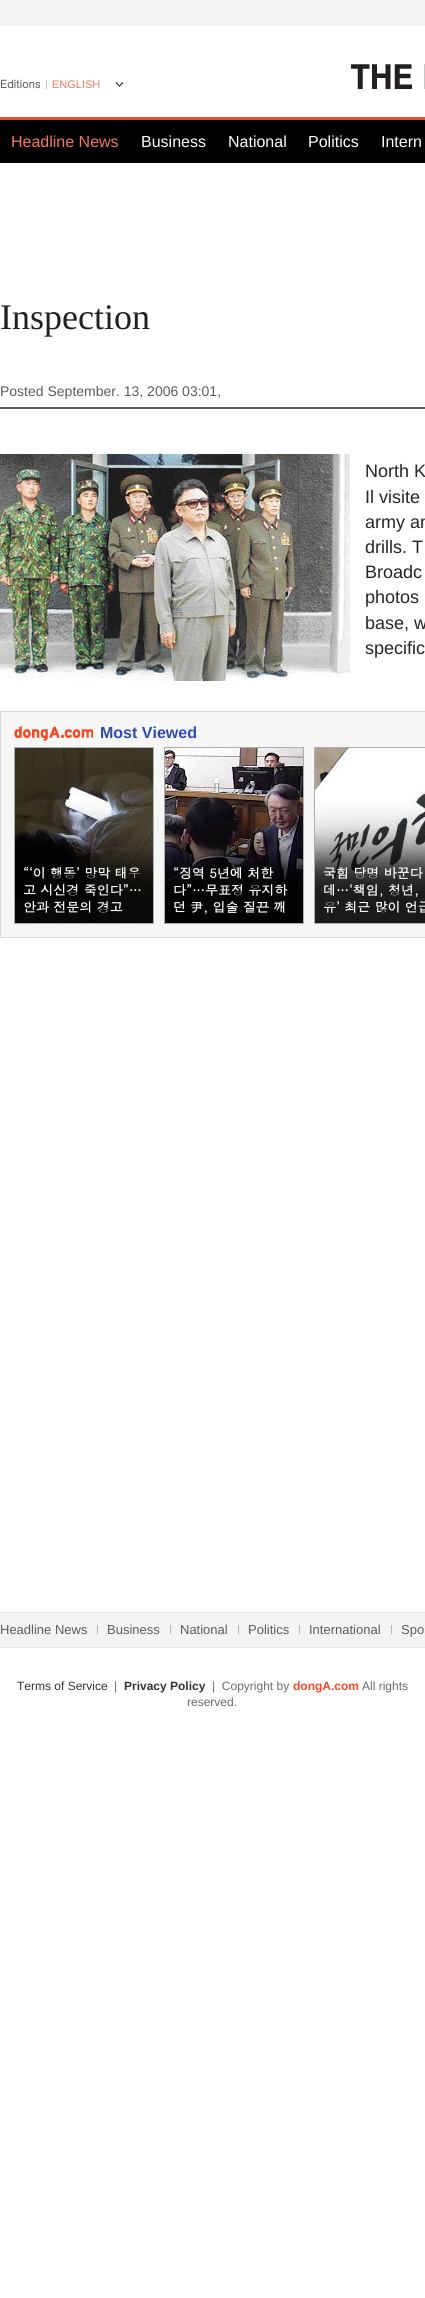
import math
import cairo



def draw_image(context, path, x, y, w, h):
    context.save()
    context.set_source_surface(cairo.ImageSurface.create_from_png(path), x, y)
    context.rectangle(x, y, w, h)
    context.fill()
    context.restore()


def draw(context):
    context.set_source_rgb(1, 1, 1)
    context.paint()
    context.set_source_rgb(244 / 255, 244 / 255, 244 / 255)
    context.rectangle(0, 0, 425, 25)
    context.fill()
    context.set_source_rgb(238 / 255, 238 / 255, 238 / 255)
    context.rectangle(0, 25, 425, 1)
    context.fill()
    context.set_source_rgb(192 / 255, 192 / 255, 192 / 255)
    context.rectangle(46, 80, 1, 9)
    context.fill()
    draw_image(context, "images/1.png", 116, 82, 7, 5)
    draw_image(context, "images/2.png", 351, 64, 74, 25)
    context.set_source_rgb(0, 0, 0)
    context.rectangle(0, 120, 425, 43)
    context.fill()
    context.set_source_rgb(239 / 255, 74 / 255, 36 / 255)
    context.rectangle(0, 117, 425, 3)
    context.fill()
    context.set_source_rgb(94 / 255, 93 / 255, 93 / 255)
    context.rectangle(0, 407, 425, 2)
    context.fill()
    draw_image(context, "images/3.png", 0, 454, 350, 227)
    context.set_source_rgb(247 / 255, 246 / 255, 246 / 255)
    context.rectangle(0.5, 711.5, 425, 226)
    context.fill_preserve()
    context.set_source_rgb(216 / 255, 217 / 255, 217 / 255)
    context.set_line_width(1)
    context.stroke()
    draw_image(context, "images/4.png", 14, 726, 79, 15)
    context.rectangle(14.5, 747.5, 139, 176)
    context.set_source_rgb(174 / 255, 173 / 255, 173 / 255)
    context.stroke()
    draw_image(context, "images/5.png", 15, 748, 138, 175)
    draw_image(context, "images/6.png", 15, 801, 138, 122)
    context.rectangle(164.5, 747.5, 139, 176)
    context.stroke()
    draw_image(context, "images/7.png", 165, 748, 138, 175)
    draw_image(context, "images/8.png", 165, 802, 138, 121)
    context.rectangle(314.5, 747.5, 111, 176)
    context.stroke()
    draw_image(context, "images/9.png", 315, 748, 110, 175)
    draw_image(context, "images/10.png", 315, 801, 110, 122)
    context.set_source_rgb(244 / 255, 244 / 255, 244 / 255)
    context.rectangle(0, 1613, 425, 34)
    context.fill()
    context.set_source_rgb(229 / 255, 229 / 255, 229 / 255)
    context.rectangle(0, 1612, 425, 1)
    context.fill()
    context.rectangle(0, 1647, 425, 1)
    context.fill()
    context.set_source_rgb(183 / 255, 183 / 255, 183 / 255)
    context.rectangle(97, 1625, 1, 9)
    context.fill()
    context.rectangle(170, 1625, 1, 9)
    context.fill()
    context.rectangle(238, 1625, 1, 9)
    context.fill()
    context.rectangle(299, 1625, 1, 9)
    context.fill()
    context.rectangle(391, 1625, 1, 9)
    context.fill()
    context.select_font_face("Dotum", cairo.FontSlant.NORMAL, cairo.FontWeight.BOLD)
    context.set_font_size(11)
    context.set_source_rgb(92 / 255, 92 / 255, 92 / 255)
    context.move_to(0, 88)
    context.show_text("Editions")
    context.select_font_face("Liberation Sans")
    context.set_source_rgb(247 / 255, 118 / 255, 96 / 255)
    context.move_to(52, 88)
    context.show_text("ENGLISH")
    context.set_font_size(16)
    context.move_to(11, 147)
    context.show_text("Headline News")
    context.set_source_rgb(1, 1, 1)
    context.move_to(141, 147)
    context.show_text("Business")
    context.move_to(228, 147)
    context.show_text("National")
    context.move_to(308, 147)
    context.show_text("Politics")
    context.move_to(381, 147)
    context.show_text("Intern")
    context.select_font_face("Liberation Serif")
    context.set_font_size(36)
    context.set_source_rgb(35 / 255, 31 / 255, 32 / 255)
    context.move_to(0, 329)
    context.show_text("Inspection")
    context.select_font_face("Liberation Sans")
    context.set_font_size(14)
    context.set_source_rgb(92 / 255, 92 / 255, 92 / 255)
    context.move_to(0, 396)
    context.show_text("Posted September. 13, 2006 03:01,")
    context.set_font_size(18)
    context.set_source_rgb(37 / 255, 37 / 255, 37 / 255)
    context.move_to(365, 477)
    context.show_text("North K")
    context.move_to(365, 503)
    context.show_text("Il visite")
    context.move_to(365, 528)
    context.show_text("army an")
    context.move_to(365, 553)
    context.show_text("drills. T")
    context.move_to(365, 578)
    context.show_text("Broadc")
    context.move_to(365, 603)
    context.show_text("photos")
    context.move_to(365, 629)
    context.show_text("base, w")
    context.move_to(365, 654)
    context.show_text("specific")
    context.select_font_face("Liberation Sans", cairo.FontSlant.NORMAL, cairo.FontWeight.BOLD)
    context.set_font_size(16)
    context.set_source_rgb(46 / 255, 76 / 255, 175 / 255)
    context.move_to(100, 738)
    context.show_text("Most Viewed")
    context.select_font_face("Dotum", cairo.FontSlant.NORMAL, cairo.FontWeight.BOLD)
    context.set_font_size(13)
    context.set_source_rgb(1, 1, 1)
    context.move_to(23, 878)
    context.show_text("“‘이 행동’ 망막 태우")
    context.move_to(23, 895)
    context.show_text("고 시신경 죽인다”…")
    context.move_to(23, 912)
    context.show_text("안과 전문의 경고")
    context.move_to(173, 878)
    context.show_text("“징역 5년에 처한")
    context.move_to(173, 895)
    context.show_text("다”…무표정 유지하")
    context.move_to(173, 912)
    context.show_text("던 尹, 입술 질끈 깨")
    context.move_to(323, 878)
    context.show_text("국힘 당명 바꾼다")
    context.move_to(323, 895)
    context.show_text("데…‘책임, 청년,")
    context.move_to(323, 912)
    context.show_text("유’ 최근 많이 언급")
    context.select_font_face("Liberation Sans")
    context.set_source_rgb(92 / 255, 92 / 255, 92 / 255)
    context.move_to(0, 1634)
    context.show_text("Headline News")
    context.move_to(107, 1634)
    context.show_text("Business")
    context.move_to(180, 1634)
    context.show_text("National")
    context.move_to(248, 1634)
    context.show_text("Politics")
    context.move_to(309, 1634)
    context.show_text("International")
    context.move_to(401, 1634)
    context.show_text("Spo")
    context.set_font_size(12)
    context.set_source_rgb(51 / 255, 51 / 255, 51 / 255)
    context.move_to(17, 1690)
    context.show_text("Terms of Service")
    context.set_source_rgb(105 / 255, 105 / 255, 105 / 255)
    context.move_to(114, 1690)
    context.show_text("|")
    context.select_font_face("Liberation Sans", cairo.FontSlant.NORMAL, cairo.FontWeight.BOLD)
    context.set_source_rgb(51 / 255, 51 / 255, 51 / 255)
    context.move_to(124, 1690)
    context.show_text("Privacy Policy")
    context.select_font_face("Liberation Sans")
    context.set_source_rgb(105 / 255, 105 / 255, 105 / 255)
    context.move_to(212, 1690)
    context.show_text("|  Copyright by")
    context.select_font_face("Liberation Sans", cairo.FontSlant.NORMAL, cairo.FontWeight.BOLD)
    context.set_source_rgb(241 / 255, 73 / 255, 34 / 255)
    context.move_to(293, 1690)
    context.show_text("dongA.com")
    context.select_font_face("Liberation Sans")
    context.set_source_rgb(105 / 255, 105 / 255, 105 / 255)
    context.move_to(362, 1690)
    context.show_text("All rights")
    context.move_to(187, 1706)
    context.show_text("reserved.")


surface = cairo.ImageSurface(cairo.Format.RGB24, 425, 2298)
context = cairo.Context(surface)
options = cairo.FontOptions()
options.set_hint_metrics(cairo.HintMetrics.OFF)
options.set_hint_style(cairo.HintStyle.NONE)
context.set_font_options(options)
context.set_miter_limit(4)
draw(context)
surface.write_to_png("out.png")
